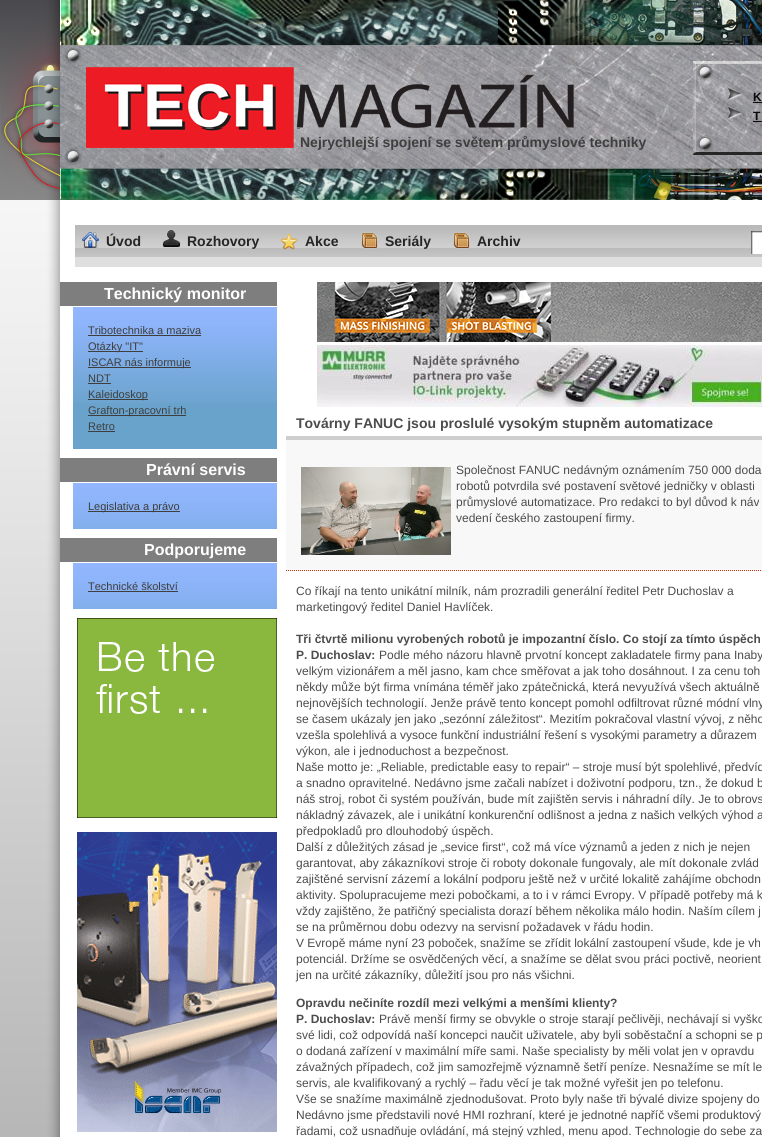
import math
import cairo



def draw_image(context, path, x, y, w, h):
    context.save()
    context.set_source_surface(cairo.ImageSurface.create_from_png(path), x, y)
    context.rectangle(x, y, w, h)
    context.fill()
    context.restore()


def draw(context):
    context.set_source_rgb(1, 1, 1)
    context.paint()
    draw_image(context, "images/1.png", 0, 0, 1, 200)
    draw_image(context, "images/2.png", 1, 0, 761, 200)
    draw_image(context, "images/3.png", 728, 88, 14, 13)
    context.set_source_rgb(10 / 255, 10 / 255, 11 / 255)
    context.rectangle(753, 102, 9, 1)
    context.fill()
    draw_image(context, "images/4.png", 728, 107, 15, 13)
    context.rectangle(753, 121, 9, 1)
    context.fill()
    draw_image(context, "images/5.png", 60, 200, 702, 937)
    draw_image(context, "images/6.png", 0, 200, 60, 937)
    draw_image(context, "images/7.png", 75, 225, 687, 42)
    draw_image(context, "images/8.png", 81, 232, 19, 16)
    draw_image(context, "images/9.png", 162, 229, 19, 19)
    draw_image(context, "images/10.png", 280, 234, 18, 16)
    draw_image(context, "images/11.png", 361, 232, 17, 17)
    draw_image(context, "images/11.png", 453, 232, 17, 17)
    draw_image(context, "images/12.png", 751, 231, 11, 23)
    context.set_source_rgb(126 / 255, 126 / 255, 126 / 255)
    context.rectangle(60, 282, 217, 24)
    context.fill()
    context.set_source_rgb(105 / 255, 163 / 255, 203 / 255)
    context.rectangle(73, 403, 204, 46)
    context.fill()
    draw_image(context, "images/13.png", 73, 307, 204, 96)
    context.set_source_rgb(62 / 255, 62 / 255, 62 / 255)
    context.rectangle(88, 335, 113, 1)
    context.fill()
    context.rectangle(88, 351, 55, 1)
    context.fill()
    context.rectangle(88, 367, 103, 1)
    context.fill()
    context.rectangle(88, 383, 23, 1)
    context.fill()
    context.rectangle(88, 399, 60, 1)
    context.fill()
    context.rectangle(88, 415, 98, 1)
    context.fill()
    context.rectangle(88, 431, 27, 1)
    context.fill()
    context.set_source_rgb(126 / 255, 126 / 255, 126 / 255)
    context.rectangle(60, 458, 217, 24)
    context.fill()
    draw_image(context, "images/14.png", 73, 483, 204, 46)
    context.set_source_rgb(62 / 255, 62 / 255, 62 / 255)
    context.rectangle(88, 511, 92, 1)
    context.fill()
    context.set_source_rgb(126 / 255, 126 / 255, 126 / 255)
    context.rectangle(60, 538, 217, 24)
    context.fill()
    draw_image(context, "images/14.png", 73, 563, 204, 46)
    context.set_source_rgb(62 / 255, 62 / 255, 62 / 255)
    context.rectangle(88, 591, 90, 1)
    context.fill()
    draw_image(context, "images/15.png", 77, 618, 200, 200)
    draw_image(context, "images/16.png", 77, 832, 200, 300)
    draw_image(context, "images/17.png", 317, 282, 445, 60)
    draw_image(context, "images/18.png", 317, 345, 445, 62)
    context.set_source_rgb(206 / 255, 206 / 255, 206 / 255)
    context.rectangle(286, 436, 476, 4)
    context.fill()
    context.set_source_rgb(248 / 255, 248 / 255, 248 / 255)
    context.rectangle(286, 440, 476, 131)
    context.fill()
    context.new_path()
    context.move_to(286, 570.5)
    context.line_to(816, 570.5)
    context.set_source_rgb(184 / 255, 54 / 255, 19 / 255)
    context.set_line_width(1)
    context.set_dash([1, 1])
    context.stroke()
    draw_image(context, "images/19.png", 301, 467, 150, 88)
    context.select_font_face("Liberation Sans", cairo.FontSlant.NORMAL, cairo.FontWeight.BOLD)
    context.set_font_size(12)
    context.set_source_rgb(10 / 255, 10 / 255, 11 / 255)
    context.move_to(753, 101)
    context.show_text("K")
    context.move_to(753, 120)
    context.show_text("T")
    context.set_font_size(14)
    context.set_source_rgb(62 / 255, 62 / 255, 62 / 255)
    context.move_to(300, 147)
    context.show_text("Nejrychlejší spojení se světem průmyslové techniky")
    context.set_source_rgb(37 / 255, 37 / 255, 37 / 255)
    context.move_to(106, 246)
    context.show_text("Úvod")
    context.move_to(187, 246)
    context.show_text("Rozhovory")
    context.move_to(305, 246)
    context.show_text("Akce")
    context.move_to(385, 246)
    context.show_text("Seriály")
    context.move_to(477, 246)
    context.show_text("Archiv")
    context.set_font_size(16)
    context.set_source_rgb(1, 1, 1)
    context.move_to(104, 299)
    context.show_text("Technický monitor")
    context.select_font_face("Liberation Sans")
    context.set_font_size(11)
    context.set_source_rgb(62 / 255, 62 / 255, 62 / 255)
    context.move_to(88, 334)
    context.show_text("Tribotechnika a maziva")
    context.move_to(88, 350)
    context.show_text("Otázky \"IT\"")
    context.move_to(88, 366)
    context.show_text("ISCAR nás informuje")
    context.move_to(88, 382)
    context.show_text("NDT")
    context.move_to(88, 398)
    context.show_text("Kaleidoskop")
    context.move_to(88, 414)
    context.show_text("Grafton-pracovní trh")
    context.move_to(88, 430)
    context.show_text("Retro")
    context.select_font_face("Liberation Sans", cairo.FontSlant.NORMAL, cairo.FontWeight.BOLD)
    context.set_font_size(16)
    context.set_source_rgb(1, 1, 1)
    context.move_to(146, 475)
    context.show_text("Právní servis")
    context.select_font_face("Liberation Sans")
    context.set_font_size(11)
    context.set_source_rgb(62 / 255, 62 / 255, 62 / 255)
    context.move_to(88, 510)
    context.show_text("Legislativa a právo")
    context.select_font_face("Liberation Sans", cairo.FontSlant.NORMAL, cairo.FontWeight.BOLD)
    context.set_font_size(16)
    context.set_source_rgb(1, 1, 1)
    context.move_to(144, 555)
    context.show_text("Podporujeme")
    context.select_font_face("Liberation Sans")
    context.set_font_size(11)
    context.set_source_rgb(62 / 255, 62 / 255, 62 / 255)
    context.move_to(88, 590)
    context.show_text("Technické školství")
    context.select_font_face("Liberation Sans", cairo.FontSlant.NORMAL, cairo.FontWeight.BOLD)
    context.set_font_size(14)
    context.set_source_rgb(76 / 255, 76 / 255, 76 / 255)
    context.move_to(296, 428)
    context.show_text("Továrny FANUC jsou proslulé vysokým stupněm automatizace")
    context.select_font_face("Liberation Sans")
    context.set_font_size(12)
    context.move_to(456, 474)
    context.show_text("Společnost FANUC nedávným oznámením 750 000 doda")
    context.move_to(456, 490)
    context.show_text("robotů potvrdila své postavení světové jedničky v oblasti")
    context.move_to(456, 506)
    context.show_text("průmyslové automatizace. Pro redakci to byl důvod k náv")
    context.move_to(456, 522)
    context.show_text("vedení českého zastoupení firmy.")
    context.move_to(296, 595)
    context.show_text("Co říkají na tento unikátní milník, nám prozradili generální ředitel Petr Duchoslav a")
    context.move_to(296, 611)
    context.show_text("marketingový ředitel Daniel Havlíček.")
    context.select_font_face("Liberation Sans", cairo.FontSlant.NORMAL, cairo.FontWeight.BOLD)
    context.move_to(296, 643)
    context.show_text("Tři čtvrtě milionu vyrobených robotů je impozantní číslo. Co stojí za tímto úspěch")
    context.move_to(296, 659)
    context.show_text("P. Duchoslav:")
    context.select_font_face("Liberation Sans")
    context.move_to(379, 659)
    context.show_text("Podle mého názoru hlavně prvotní koncept zakladatele firmy pana Inaby")
    context.move_to(296, 675)
    context.show_text("velkým vizionářem a měl jasno, kam chce směřovat a jak toho dosáhnout. I za cenu toh")
    context.move_to(296, 691)
    context.show_text("někdy může být firma vnímána téměř jako zpátečnická, která nevyužívá všech aktuálně")
    context.move_to(296, 707)
    context.show_text("nejnovějších technologií. Jenže právě tento koncept pomohl odfiltrovat různé módní vlny")
    context.move_to(296, 723)
    context.show_text("se časem ukázaly jen jako „sezónní záležitost“. Mezitím pokračoval vlastní vývoj, z něho")
    context.move_to(296, 739)
    context.show_text("vzešla spolehlivá a vysoce funkční industriální řešení s vysokými parametry a důrazem")
    context.move_to(296, 755)
    context.show_text("výkon, ale i jednoduchost a bezpečnost.")
    context.move_to(296, 771)
    context.show_text("Naše motto je: „Reliable, predictable easy to repair“ – stroje musí být spolehlivé, předvíd")
    context.move_to(296, 787)
    context.show_text("a snadno opravitelné. Nedávno jsme začali nabízet i doživotní podporu, tzn., že dokud b")
    context.move_to(296, 803)
    context.show_text("náš stroj, robot či systém používán, bude mít zajištěn servis i náhradní díly. Je to obrovs")
    context.move_to(296, 819)
    context.show_text("nákladný závazek, ale i unikátní konkurenční odlišnost a jedna z našich velkých výhod a")
    context.move_to(296, 835)
    context.show_text("předpokladů pro dlouhodobý úspěch.")
    context.move_to(296, 851)
    context.show_text("Další z důležitých zásad je „sevice first“, což má více významů a jeden z nich je nejen")
    context.move_to(296, 867)
    context.show_text("garantovat, aby zákazníkovi stroje či roboty dokonale fungovaly, ale mít dokonale zvlád")
    context.move_to(296, 883)
    context.show_text("zajištěné servisní zázemí a lokální podporu ještě než v určité lokalitě zahájíme obchodn")
    context.move_to(296, 899)
    context.show_text("aktivity. Spolupracujeme mezi pobočkami, a to i v rámci Evropy. V případě potřeby má k")
    context.move_to(296, 915)
    context.show_text("vždy zajištěno, že patřičný specialista dorazí během několika málo hodin. Naším cílem j")
    context.move_to(296, 931)
    context.show_text("se na průměrnou dobu odezvy na servisní požadavek v řádu hodin.")
    context.move_to(296, 947)
    context.show_text("V Evropě máme nyní 23 poboček, snažíme se zřídit lokální zastoupení všude, kde je vh")
    context.move_to(296, 963)
    context.show_text("potenciál. Držíme se osvědčených věcí, a snažíme se dělat svou práci poctivě, neorient")
    context.move_to(296, 979)
    context.show_text("jen na určité zákazníky, důležití jsou pro nás všichni.")
    context.select_font_face("Liberation Sans", cairo.FontSlant.NORMAL, cairo.FontWeight.BOLD)
    context.move_to(296, 1007)
    context.show_text("Opravdu nečiníte rozdíl mezi velkými a menšími klienty?")
    context.move_to(296, 1023)
    context.show_text("P. Duchoslav:")
    context.select_font_face("Liberation Sans")
    context.move_to(379, 1023)
    context.show_text("Právě menší firmy se obvykle o stroje starají pečlivěji, nechávají si vyško")
    context.move_to(296, 1039)
    context.show_text("své lidi, což odpovídá naší koncepci naučit uživatele, aby byli soběstační a schopni se p")
    context.move_to(296, 1055)
    context.show_text("o dodaná zařízení v maximální míře sami. Naše specialisty by měli volat jen v opravdu")
    context.move_to(296, 1071)
    context.show_text("závažných případech, což jim samozřejmě významně šetří peníze. Nesnažíme se mít le")
    context.move_to(296, 1087)
    context.show_text("servis, ale kvalifikovaný a rychlý – řadu věcí je tak možné vyřešit jen po telefonu.")
    context.move_to(296, 1103)
    context.show_text("Vše se snažíme maximálně zjednodušovat. Proto byly naše tři bývalé divize spojeny do")
    context.move_to(296, 1119)
    context.show_text("Nedávno jsme představili nové HMI rozhraní, které je jednotné napříč všemi produktový")
    context.move_to(296, 1135)
    context.show_text("řadami, což usnadňuje ovládání, má stejný vzhled, menu apod. Technologie do sebe za")


surface = cairo.ImageSurface(cairo.Format.RGB24, 762, 1137)
context = cairo.Context(surface)
options = cairo.FontOptions()
options.set_hint_metrics(cairo.HintMetrics.OFF)
options.set_hint_style(cairo.HintStyle.NONE)
context.set_font_options(options)
context.set_miter_limit(4)
draw(context)
surface.write_to_png("out.png")
